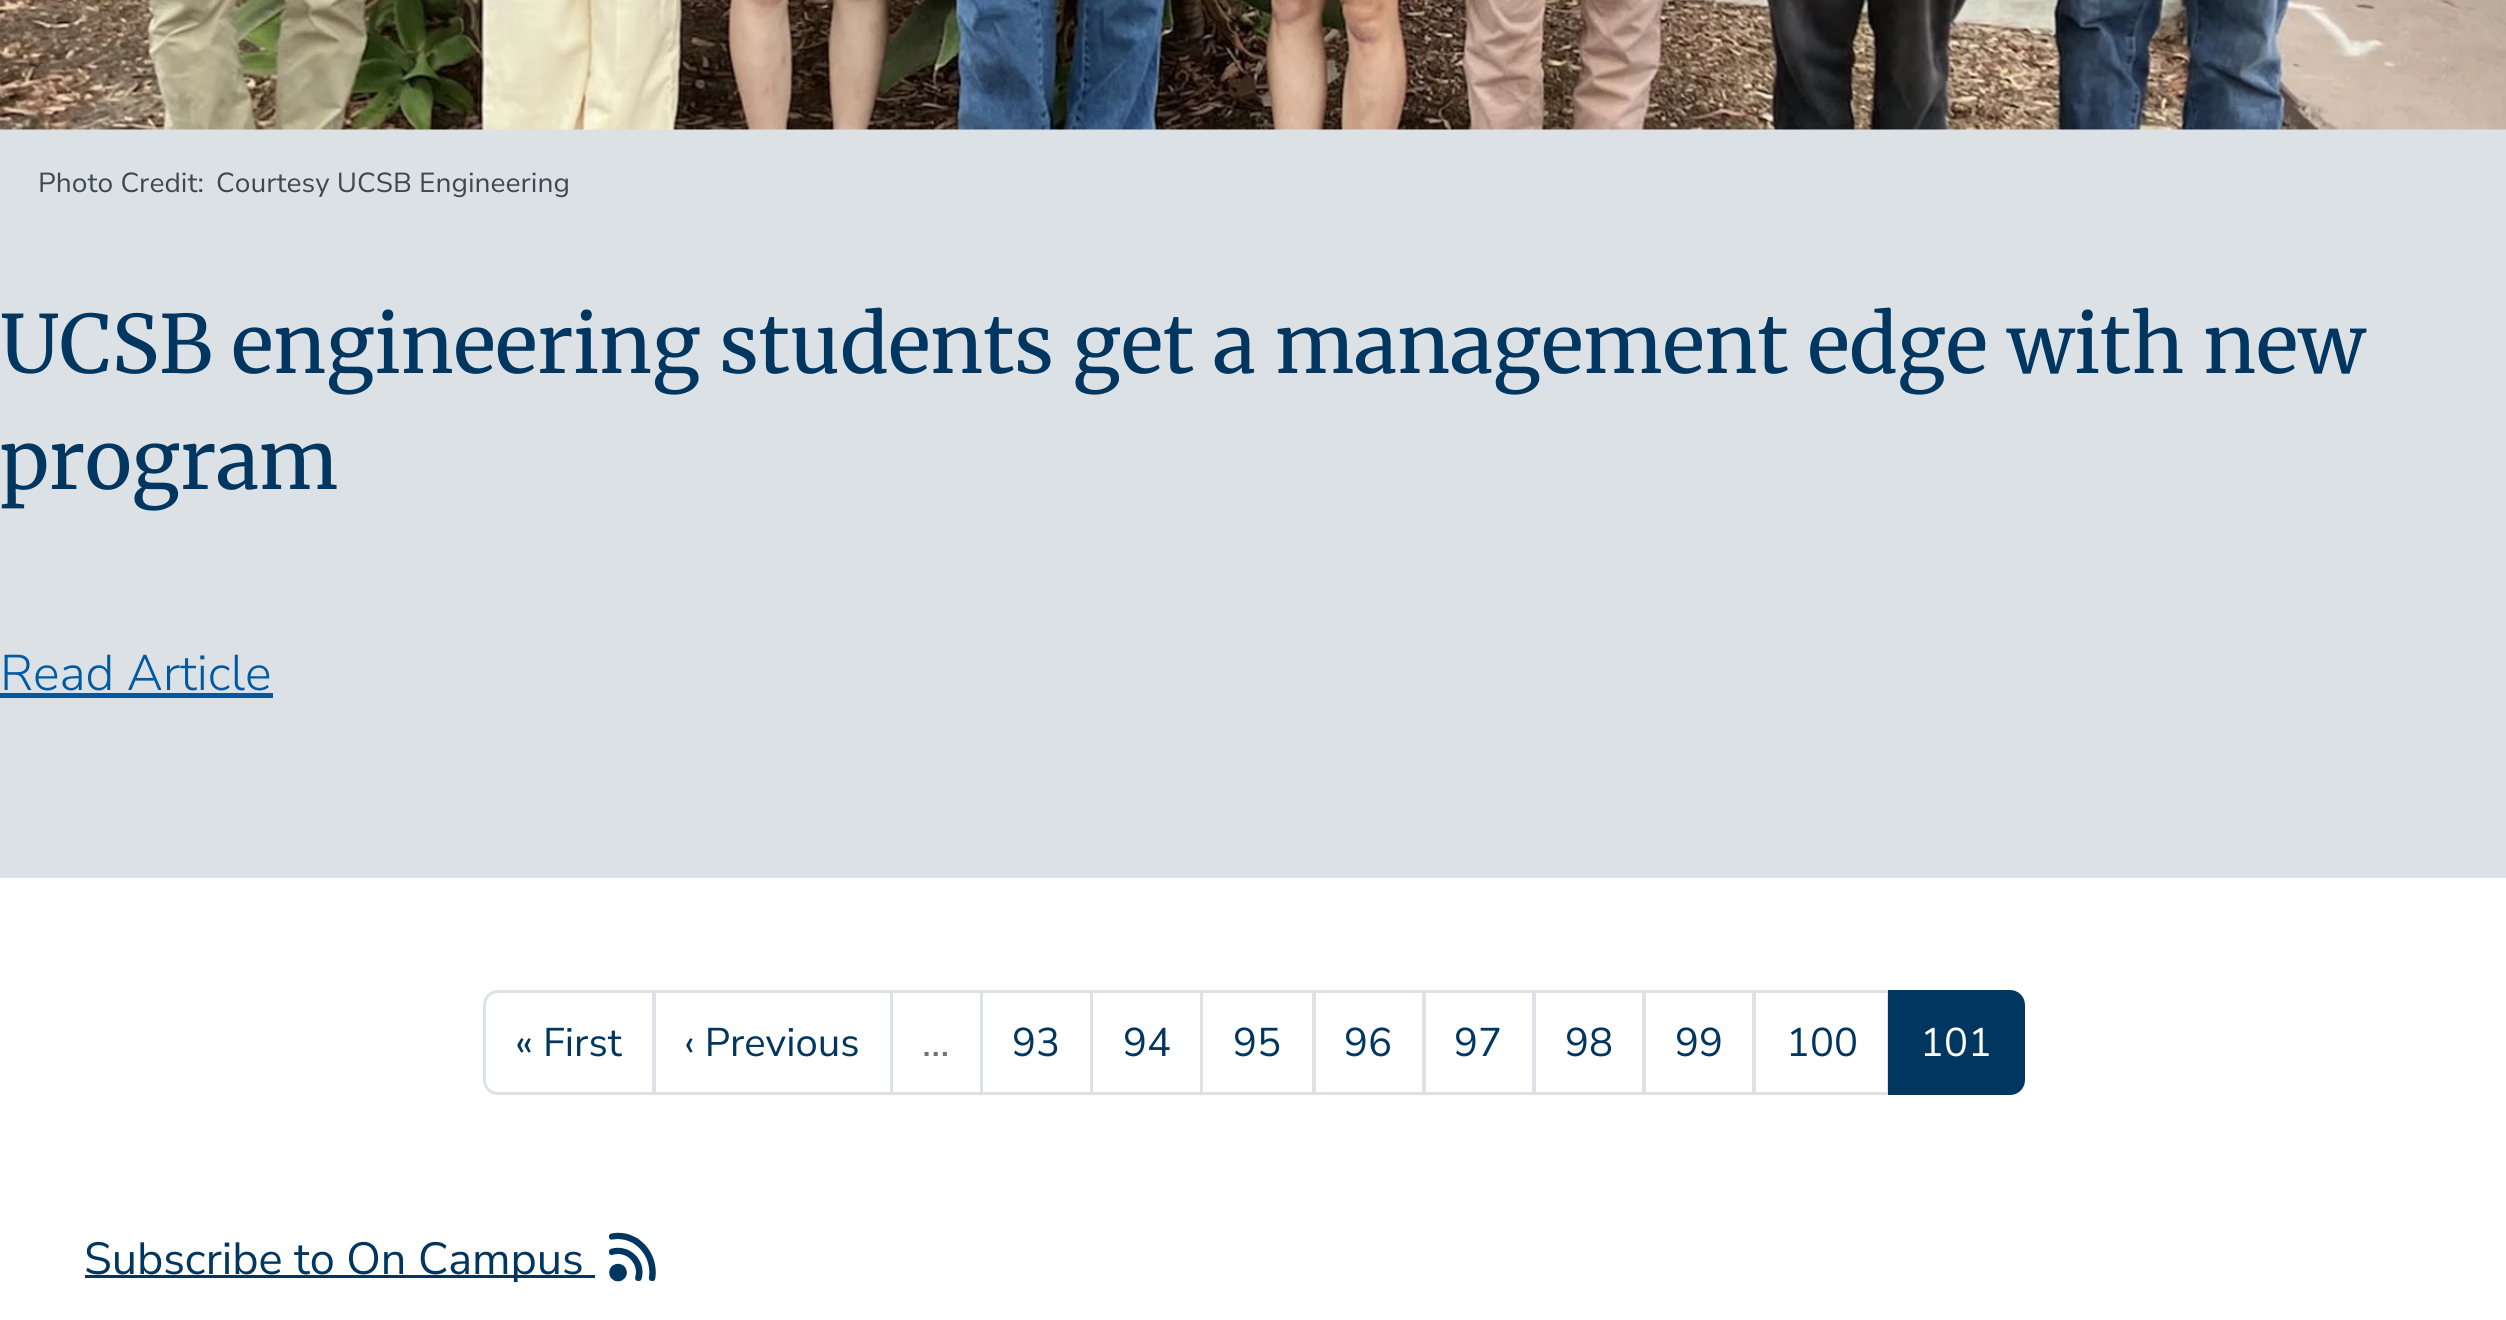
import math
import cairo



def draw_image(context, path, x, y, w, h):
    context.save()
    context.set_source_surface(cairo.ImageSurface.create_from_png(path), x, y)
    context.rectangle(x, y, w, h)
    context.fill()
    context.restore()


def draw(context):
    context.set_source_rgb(1, 1, 1)
    context.paint()
    context.set_source_rgb(220 / 255, 225 / 255, 229 / 255)
    context.rectangle(0, 129, 2506, 749)
    context.fill()
    draw_image(context, "images/1.png", 0, 0, 2506, 130)
    context.set_source_rgb(0, 90 / 255, 163 / 255)
    context.rectangle(0, 693, 273, 5)
    context.fill()
    context.new_path()
    context.move_to(498, 991.5)
    context.line_to(653.5, 991.5)
    context.line_to(653.5, 1093.5)
    context.line_to(498, 1093.5)
    context.curve_to(490.5, 1093.5, 484.5, 1087.5, 484.5, 1080)
    context.line_to(484.5, 1005)
    context.curve_to(484.5, 997.5, 490.5, 991.5, 498, 991.5)
    context.close_path()
    context.set_source_rgb(222 / 255, 226 / 255, 230 / 255)
    context.set_line_width(3)
    context.stroke()
    context.rectangle(654.5, 991.5, 237, 102)
    context.stroke()
    context.rectangle(891.5, 991.5, 90, 102)
    context.stroke()
    context.rectangle(981.5, 991.5, 110, 102)
    context.stroke()
    context.rectangle(1091.5, 991.5, 110, 102)
    context.stroke()
    context.rectangle(1201.5, 991.5, 112, 102)
    context.stroke()
    context.rectangle(1314.5, 991.5, 109, 102)
    context.stroke()
    context.rectangle(1424.5, 991.5, 109, 102)
    context.stroke()
    context.rectangle(1534.5, 991.5, 109, 102)
    context.stroke()
    context.rectangle(1644.5, 991.5, 109, 102)
    context.stroke()
    context.rectangle(1754.5, 991.5, 134, 102)
    context.stroke()
    context.set_source_rgb(0, 54 / 255, 96 / 255)
    context.new_path()
    context.move_to(1889.5, 991.5)
    context.line_to(2010, 991.5)
    context.curve_to(2017.5, 991.5, 2023.5, 997.5, 2023.5, 1005)
    context.line_to(2023.5, 1080)
    context.curve_to(2023.5, 1087.5, 2017.5, 1093.5, 2010, 1093.5)
    context.line_to(1889.5, 1093.5)
    context.close_path()
    context.fill_preserve()
    context.stroke()
    context.rectangle(85, 1275, 510, 3)
    context.fill()
    draw_image(context, "images/2.png", 608, 1232, 48, 50)
    context.select_font_face("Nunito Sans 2")
    context.set_font_size(27.5)
    context.set_source_rgb(61 / 255, 73 / 255, 82 / 255)
    context.move_to(38, 192)
    context.show_text("Photo Credit:")
    context.move_to(216, 192)
    context.show_text("Courtesy UCSB Engineering")
    context.select_font_face("Merriweather")
    context.set_font_size(80)
    context.set_source_rgb(0, 54 / 255, 96 / 255)
    context.move_to(0, 373)
    context.show_text("UCSB engineering students get a management edge with new")
    context.move_to(0, 489)
    context.show_text("program")
    context.select_font_face("Nunito Sans Light")
    context.set_font_size(50)
    context.set_source_rgb(0, 90 / 255, 163 / 255)
    context.move_to(0, 690)
    context.show_text("Read Article")
    context.select_font_face("Nunito Sans")
    context.set_font_size(40)
    context.set_source_rgb(0, 54 / 255, 96 / 255)
    context.move_to(515, 1056)
    context.show_text("« First")
    context.move_to(684, 1056)
    context.show_text("‹ Previous")
    context.set_source_rgb(108 / 255, 117 / 255, 125 / 255)
    context.move_to(922, 1056)
    context.show_text("…")
    context.set_source_rgb(0, 54 / 255, 96 / 255)
    context.move_to(1012, 1056)
    context.show_text("93")
    context.move_to(1123, 1056)
    context.show_text("94")
    context.move_to(1233, 1056)
    context.show_text("95")
    context.move_to(1344, 1056)
    context.show_text("96")
    context.move_to(1454, 1056)
    context.show_text("97")
    context.move_to(1565, 1056)
    context.show_text("98")
    context.move_to(1675, 1056)
    context.show_text("99")
    context.move_to(1786, 1056)
    context.show_text("100")
    context.set_source_rgb(1, 1, 1)
    context.move_to(1920, 1056)
    context.show_text("101")
    context.set_font_size(45)
    context.set_source_rgb(0, 54 / 255, 96 / 255)
    context.move_to(84, 1274)
    context.show_text("Subscribe to On Campus")


surface = cairo.ImageSurface(cairo.Format.RGB24, 2506, 1320)
context = cairo.Context(surface)
options = cairo.FontOptions()
options.set_hint_metrics(cairo.HintMetrics.OFF)
options.set_hint_style(cairo.HintStyle.NONE)
context.set_font_options(options)
context.set_miter_limit(4)
draw(context)
surface.write_to_png("out.png")
